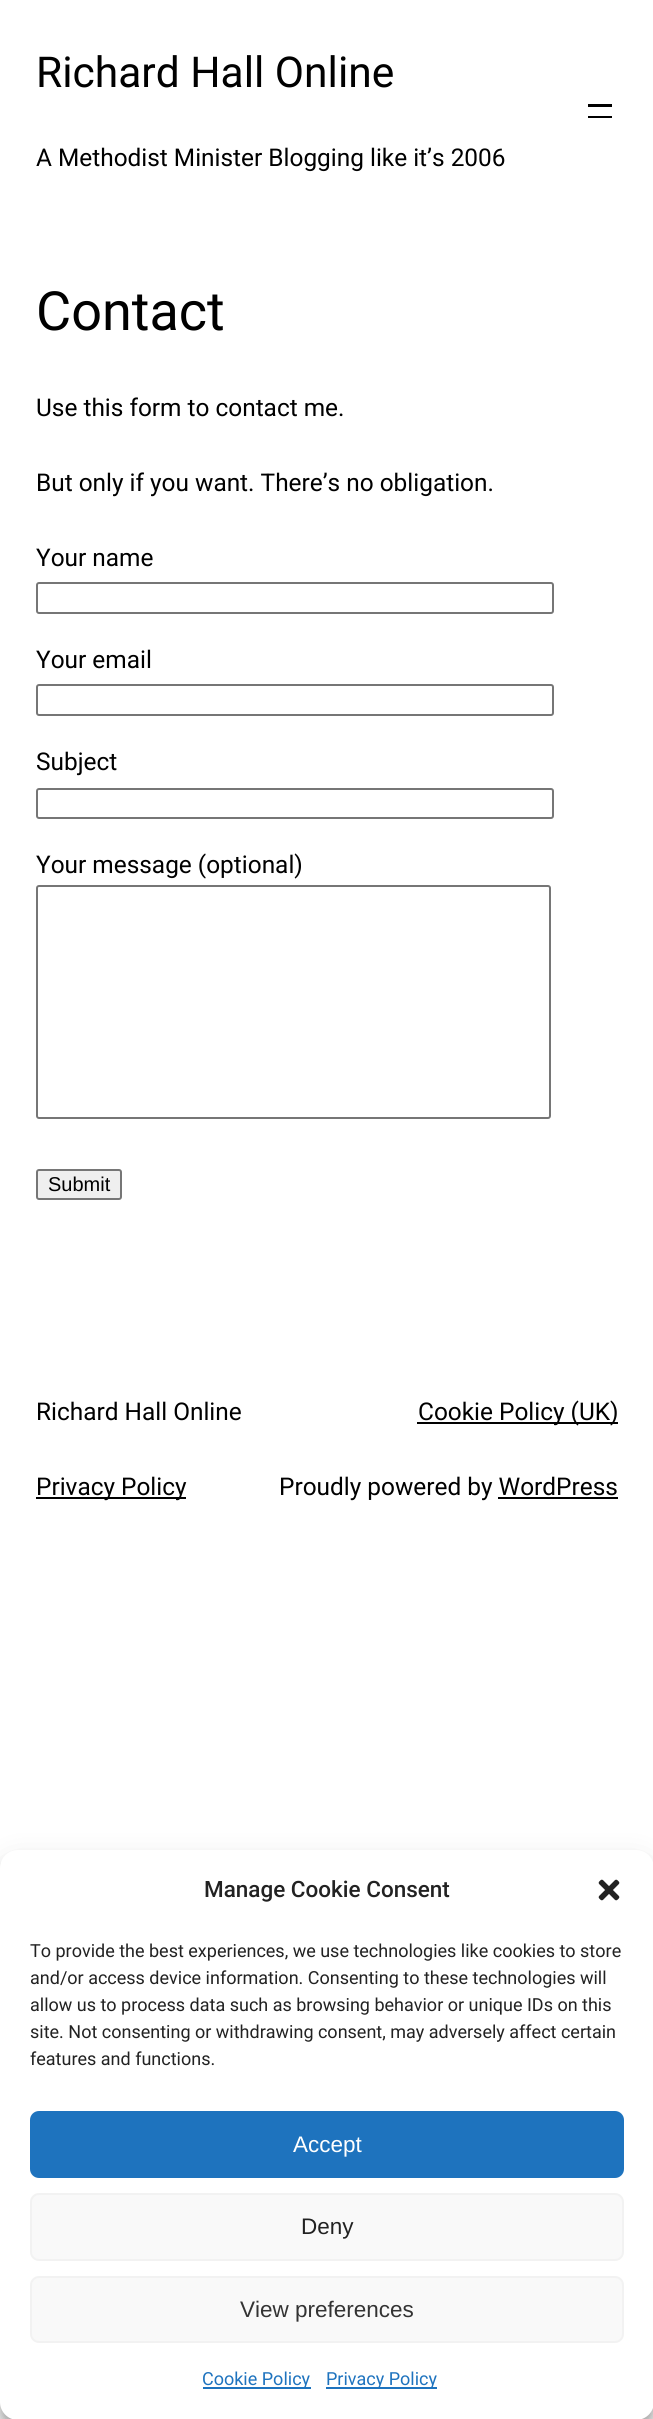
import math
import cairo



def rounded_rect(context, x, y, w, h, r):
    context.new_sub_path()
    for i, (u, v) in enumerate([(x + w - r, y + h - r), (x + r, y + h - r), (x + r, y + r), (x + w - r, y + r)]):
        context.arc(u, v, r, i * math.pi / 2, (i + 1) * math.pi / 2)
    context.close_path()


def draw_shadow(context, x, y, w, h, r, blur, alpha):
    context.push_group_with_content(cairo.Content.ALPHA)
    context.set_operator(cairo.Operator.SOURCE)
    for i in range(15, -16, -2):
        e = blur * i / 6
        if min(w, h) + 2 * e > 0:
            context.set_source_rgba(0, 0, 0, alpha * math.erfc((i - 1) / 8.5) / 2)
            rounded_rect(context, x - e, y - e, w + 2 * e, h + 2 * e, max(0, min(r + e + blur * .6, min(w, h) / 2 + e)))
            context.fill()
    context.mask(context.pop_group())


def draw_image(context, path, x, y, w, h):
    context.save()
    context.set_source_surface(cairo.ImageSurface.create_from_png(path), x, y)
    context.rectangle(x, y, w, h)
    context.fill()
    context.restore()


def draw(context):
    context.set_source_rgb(1, 1, 1)
    context.paint()
    context.set_source_rgb(0, 0, 0)
    context.rectangle(588, 104, 24, 3)
    context.fill()
    context.rectangle(588, 116, 24, 2)
    context.fill()
    rounded_rect(context, 37, 583, 516, 30, 2)
    context.set_source_rgb(118 / 255, 118 / 255, 118 / 255)
    context.stroke()
    rounded_rect(context, 37, 685, 516, 30, 2)
    context.stroke()
    rounded_rect(context, 37, 789, 516, 29, 2)
    context.stroke()
    rounded_rect(context, 37, 886, 513, 232, 2)
    context.stroke()
    context.set_source_rgb(239 / 255, 239 / 255, 239 / 255)
    rounded_rect(context, 37, 1170, 84, 29, 2)
    context.fill_preserve()
    context.set_source_rgb(118 / 255, 118 / 255, 118 / 255)
    context.stroke()
    context.set_source_rgb(0, 0, 0)
    context.rectangle(417, 1422, 201, 2)
    context.fill()
    context.rectangle(36, 1497, 150, 2)
    context.fill()
    context.rectangle(498, 1497, 120, 2)
    context.fill()
    context.set_source_rgb(0, 0, 0)
    draw_shadow(context, 0, 1859, 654, 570, 18, 4.5, 0.23)
    draw_shadow(context, 0, 1865, 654, 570, 18, 15, 0.19)
    context.set_source_rgb(1, 1, 1)
    rounded_rect(context, 0, 1850, 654, 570, 18)
    context.fill()
    draw_image(context, "images/1.png", 598, 1879, 22, 22)
    context.set_source_rgb(30 / 255, 115 / 255, 190 / 255)
    rounded_rect(context, 31, 2112, 592, 65, 8)
    context.fill_preserve()
    context.stroke()
    context.set_source_rgb(249 / 255, 249 / 255, 249 / 255)
    rounded_rect(context, 31, 2194, 592, 66, 8)
    context.fill_preserve()
    context.set_source_rgb(242 / 255, 242 / 255, 242 / 255)
    context.stroke()
    context.set_source_rgb(249 / 255, 249 / 255, 249 / 255)
    rounded_rect(context, 31, 2277, 592, 65, 8)
    context.fill_preserve()
    context.set_source_rgb(242 / 255, 242 / 255, 242 / 255)
    context.stroke()
    context.set_source_rgb(30 / 255, 115 / 255, 190 / 255)
    context.rectangle(203, 2387, 108, 2)
    context.fill()
    context.rectangle(326, 2387, 111, 2)
    context.fill()
    context.select_font_face("Roboto")
    context.set_font_size(42.5)
    context.set_source_rgb(0, 0, 0)
    context.move_to(36, 87)
    context.show_text("Richard Hall Online")
    context.set_font_size(24.4)
    context.move_to(36, 166)
    context.show_text("A Methodist Minister Blogging like it’s 2006")
    context.set_font_size(54)
    context.move_to(36, 330)
    context.show_text("Contact")
    context.set_font_size(24.4)
    context.move_to(36, 416)
    context.show_text("Use this form to contact me.")
    context.move_to(36, 491)
    context.show_text("But only if you want. There’s no obligation.")
    context.move_to(36, 566)
    context.show_text("Your name")
    context.move_to(36, 668)
    context.show_text("Your email")
    context.move_to(36, 770)
    context.show_text("Subject")
    context.move_to(36, 873)
    context.show_text("Your message (optional)")
    context.select_font_face("Liberation Sans")
    context.set_font_size(20)
    context.move_to(48, 1191)
    context.show_text("Submit")
    context.select_font_face("Roboto")
    context.set_font_size(24.4)
    context.move_to(36, 1420)
    context.show_text("Richard Hall Online")
    context.move_to(418, 1420)
    context.show_text("Cookie Policy (UK)")
    context.move_to(36, 1495)
    context.show_text("Privacy Policy")
    context.move_to(279, 1495)
    context.show_text("Proudly powered by WordPress")
    context.select_font_face("Roboto Medium")
    context.set_font_size(22.5)
    context.set_source_rgb(34 / 255, 34 / 255, 34 / 255)
    context.move_to(204, 1897)
    context.show_text("Manage Cookie Consent")
    context.select_font_face("Roboto")
    context.set_font_size(18)
    context.move_to(30, 1957)
    context.show_text("To provide the best experiences, we use technologies like cookies to store")
    context.move_to(30, 1984)
    context.show_text("and/or access device information. Consenting to these technologies will")
    context.move_to(30, 2011)
    context.show_text("allow us to process data such as browsing behavior or unique IDs on this")
    context.move_to(30, 2038)
    context.show_text("site. Not consenting or withdrawing consent, may adversely affect certain")
    context.move_to(30, 2065)
    context.show_text("features and functions.")
    context.select_font_face("Liberation Sans")
    context.set_font_size(22.5)
    context.set_source_rgb(1, 1, 1)
    context.move_to(293, 2152)
    context.show_text("Accept")
    context.set_source_rgb(34 / 255, 34 / 255, 34 / 255)
    context.move_to(301, 2234)
    context.show_text("Deny")
    context.set_source_rgb(51 / 255, 51 / 255, 51 / 255)
    context.move_to(240, 2317)
    context.show_text("View preferences")
    context.select_font_face("Roboto")
    context.set_font_size(18)
    context.set_source_rgb(30 / 255, 115 / 255, 190 / 255)
    context.move_to(202, 2385)
    context.show_text("Cookie Policy")
    context.move_to(326, 2385)
    context.show_text("Privacy Policy")


surface = cairo.ImageSurface(cairo.Format.RGB24, 653, 2419)
context = cairo.Context(surface)
options = cairo.FontOptions()
options.set_hint_metrics(cairo.HintMetrics.OFF)
options.set_hint_style(cairo.HintStyle.NONE)
context.set_font_options(options)
context.set_miter_limit(4)
draw(context)
surface.write_to_png("out.png")
